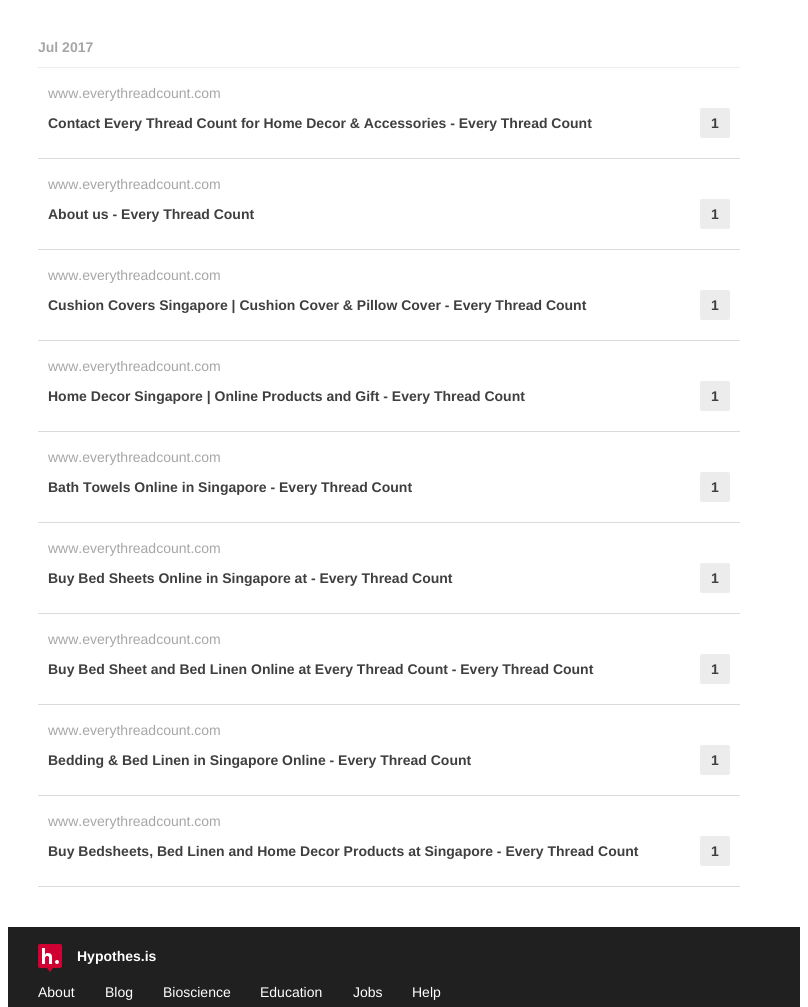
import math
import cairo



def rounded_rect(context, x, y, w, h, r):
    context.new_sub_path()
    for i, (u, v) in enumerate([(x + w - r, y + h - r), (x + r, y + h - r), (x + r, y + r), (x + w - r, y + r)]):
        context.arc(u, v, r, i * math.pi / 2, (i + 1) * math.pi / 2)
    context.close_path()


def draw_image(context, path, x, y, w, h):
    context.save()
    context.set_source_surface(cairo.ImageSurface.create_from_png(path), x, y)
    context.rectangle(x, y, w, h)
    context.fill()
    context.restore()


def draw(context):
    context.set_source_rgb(1, 1, 1)
    context.paint()
    context.set_source_rgb(236 / 255, 236 / 255, 236 / 255)
    context.rectangle(38, 67, 702, 1)
    context.fill()
    context.set_source_rgb(219 / 255, 219 / 255, 219 / 255)
    context.rectangle(38, 158, 702, 1)
    context.fill()
    context.set_source_rgb(236 / 255, 236 / 255, 236 / 255)
    rounded_rect(context, 700, 108, 30, 30, 2)
    context.fill()
    context.set_source_rgb(219 / 255, 219 / 255, 219 / 255)
    context.rectangle(38, 249, 702, 1)
    context.fill()
    context.set_source_rgb(236 / 255, 236 / 255, 236 / 255)
    rounded_rect(context, 700, 199, 30, 30, 2)
    context.fill()
    context.set_source_rgb(219 / 255, 219 / 255, 219 / 255)
    context.rectangle(38, 340, 702, 1)
    context.fill()
    context.set_source_rgb(236 / 255, 236 / 255, 236 / 255)
    rounded_rect(context, 700, 290, 30, 30, 2)
    context.fill()
    context.set_source_rgb(219 / 255, 219 / 255, 219 / 255)
    context.rectangle(38, 431, 702, 1)
    context.fill()
    context.set_source_rgb(236 / 255, 236 / 255, 236 / 255)
    rounded_rect(context, 700, 381, 30, 30, 2)
    context.fill()
    context.set_source_rgb(219 / 255, 219 / 255, 219 / 255)
    context.rectangle(38, 522, 702, 1)
    context.fill()
    context.set_source_rgb(236 / 255, 236 / 255, 236 / 255)
    rounded_rect(context, 700, 472, 30, 30, 2)
    context.fill()
    context.set_source_rgb(219 / 255, 219 / 255, 219 / 255)
    context.rectangle(38, 613, 702, 1)
    context.fill()
    context.set_source_rgb(236 / 255, 236 / 255, 236 / 255)
    rounded_rect(context, 700, 563, 30, 30, 2)
    context.fill()
    context.set_source_rgb(219 / 255, 219 / 255, 219 / 255)
    context.rectangle(38, 704, 702, 1)
    context.fill()
    context.set_source_rgb(236 / 255, 236 / 255, 236 / 255)
    rounded_rect(context, 700, 654, 30, 30, 2)
    context.fill()
    context.set_source_rgb(219 / 255, 219 / 255, 219 / 255)
    context.rectangle(38, 795, 702, 1)
    context.fill()
    context.set_source_rgb(236 / 255, 236 / 255, 236 / 255)
    rounded_rect(context, 700, 745, 30, 30, 2)
    context.fill()
    context.set_source_rgb(219 / 255, 219 / 255, 219 / 255)
    context.rectangle(38, 886, 702, 1)
    context.fill()
    context.set_source_rgb(236 / 255, 236 / 255, 236 / 255)
    rounded_rect(context, 700, 836, 30, 30, 2)
    context.fill()
    context.set_source_rgb(32 / 255, 32 / 255, 32 / 255)
    context.rectangle(8, 927, 792, 80)
    context.fill()
    draw_image(context, "images/1.png", 38, 944, 24, 28)
    context.select_font_face("Liberation Sans", cairo.FontSlant.NORMAL, cairo.FontWeight.BOLD)
    context.set_font_size(14)
    context.set_source_rgb(166 / 255, 166 / 255, 166 / 255)
    context.move_to(38, 52)
    context.show_text("Jul 2017")
    context.select_font_face("Liberation Sans")
    context.move_to(48, 98)
    context.show_text("www.everythreadcount.com")
    context.select_font_face("Liberation Sans", cairo.FontSlant.NORMAL, cairo.FontWeight.BOLD)
    context.set_source_rgb(63 / 255, 63 / 255, 63 / 255)
    context.move_to(48, 128)
    context.show_text("Contact Every Thread Count for Home Decor & Accessories - Every Thread Count")
    context.move_to(711, 128)
    context.show_text("1")
    context.select_font_face("Liberation Sans")
    context.set_source_rgb(166 / 255, 166 / 255, 166 / 255)
    context.move_to(48, 189)
    context.show_text("www.everythreadcount.com")
    context.select_font_face("Liberation Sans", cairo.FontSlant.NORMAL, cairo.FontWeight.BOLD)
    context.set_source_rgb(63 / 255, 63 / 255, 63 / 255)
    context.move_to(48, 219)
    context.show_text("About us - Every Thread Count")
    context.move_to(711, 219)
    context.show_text("1")
    context.select_font_face("Liberation Sans")
    context.set_source_rgb(166 / 255, 166 / 255, 166 / 255)
    context.move_to(48, 280)
    context.show_text("www.everythreadcount.com")
    context.select_font_face("Liberation Sans", cairo.FontSlant.NORMAL, cairo.FontWeight.BOLD)
    context.set_source_rgb(63 / 255, 63 / 255, 63 / 255)
    context.move_to(48, 310)
    context.show_text("Cushion Covers Singapore | Cushion Cover & Pillow Cover - Every Thread Count")
    context.move_to(711, 310)
    context.show_text("1")
    context.select_font_face("Liberation Sans")
    context.set_source_rgb(166 / 255, 166 / 255, 166 / 255)
    context.move_to(48, 371)
    context.show_text("www.everythreadcount.com")
    context.select_font_face("Liberation Sans", cairo.FontSlant.NORMAL, cairo.FontWeight.BOLD)
    context.set_source_rgb(63 / 255, 63 / 255, 63 / 255)
    context.move_to(48, 401)
    context.show_text("Home Decor Singapore | Online Products and Gift - Every Thread Count")
    context.move_to(711, 401)
    context.show_text("1")
    context.select_font_face("Liberation Sans")
    context.set_source_rgb(166 / 255, 166 / 255, 166 / 255)
    context.move_to(48, 462)
    context.show_text("www.everythreadcount.com")
    context.select_font_face("Liberation Sans", cairo.FontSlant.NORMAL, cairo.FontWeight.BOLD)
    context.set_source_rgb(63 / 255, 63 / 255, 63 / 255)
    context.move_to(48, 492)
    context.show_text("Bath Towels Online in Singapore - Every Thread Count")
    context.move_to(711, 492)
    context.show_text("1")
    context.select_font_face("Liberation Sans")
    context.set_source_rgb(166 / 255, 166 / 255, 166 / 255)
    context.move_to(48, 553)
    context.show_text("www.everythreadcount.com")
    context.select_font_face("Liberation Sans", cairo.FontSlant.NORMAL, cairo.FontWeight.BOLD)
    context.set_source_rgb(63 / 255, 63 / 255, 63 / 255)
    context.move_to(48, 583)
    context.show_text("Buy Bed Sheets Online in Singapore at - Every Thread Count")
    context.move_to(711, 583)
    context.show_text("1")
    context.select_font_face("Liberation Sans")
    context.set_source_rgb(166 / 255, 166 / 255, 166 / 255)
    context.move_to(48, 644)
    context.show_text("www.everythreadcount.com")
    context.select_font_face("Liberation Sans", cairo.FontSlant.NORMAL, cairo.FontWeight.BOLD)
    context.set_source_rgb(63 / 255, 63 / 255, 63 / 255)
    context.move_to(48, 674)
    context.show_text("Buy Bed Sheet and Bed Linen Online at Every Thread Count - Every Thread Count")
    context.move_to(711, 674)
    context.show_text("1")
    context.select_font_face("Liberation Sans")
    context.set_source_rgb(166 / 255, 166 / 255, 166 / 255)
    context.move_to(48, 735)
    context.show_text("www.everythreadcount.com")
    context.select_font_face("Liberation Sans", cairo.FontSlant.NORMAL, cairo.FontWeight.BOLD)
    context.set_source_rgb(63 / 255, 63 / 255, 63 / 255)
    context.move_to(48, 765)
    context.show_text("Bedding & Bed Linen in Singapore Online - Every Thread Count")
    context.move_to(711, 765)
    context.show_text("1")
    context.select_font_face("Liberation Sans")
    context.set_source_rgb(166 / 255, 166 / 255, 166 / 255)
    context.move_to(48, 826)
    context.show_text("www.everythreadcount.com")
    context.select_font_face("Liberation Sans", cairo.FontSlant.NORMAL, cairo.FontWeight.BOLD)
    context.set_source_rgb(63 / 255, 63 / 255, 63 / 255)
    context.move_to(48, 856)
    context.show_text("Buy Bedsheets, Bed Linen and Home Decor Products at Singapore - Every Thread Count")
    context.move_to(711, 856)
    context.show_text("1")
    context.set_source_rgb(1, 1, 1)
    context.move_to(77, 961)
    context.show_text("Hypothes.is")
    context.select_font_face("Liberation Sans")
    context.move_to(38, 997)
    context.show_text("About")
    context.move_to(105, 997)
    context.show_text("Blog")
    context.move_to(163, 997)
    context.show_text("Bioscience")
    context.move_to(260, 997)
    context.show_text("Education")
    context.move_to(353, 997)
    context.show_text("Jobs")
    context.move_to(412, 997)
    context.show_text("Help")


surface = cairo.ImageSurface(cairo.Format.RGB24, 808, 1007)
context = cairo.Context(surface)
options = cairo.FontOptions()
options.set_hint_metrics(cairo.HintMetrics.OFF)
options.set_hint_style(cairo.HintStyle.NONE)
context.set_font_options(options)
context.set_miter_limit(4)
draw(context)
surface.write_to_png("out.png")
